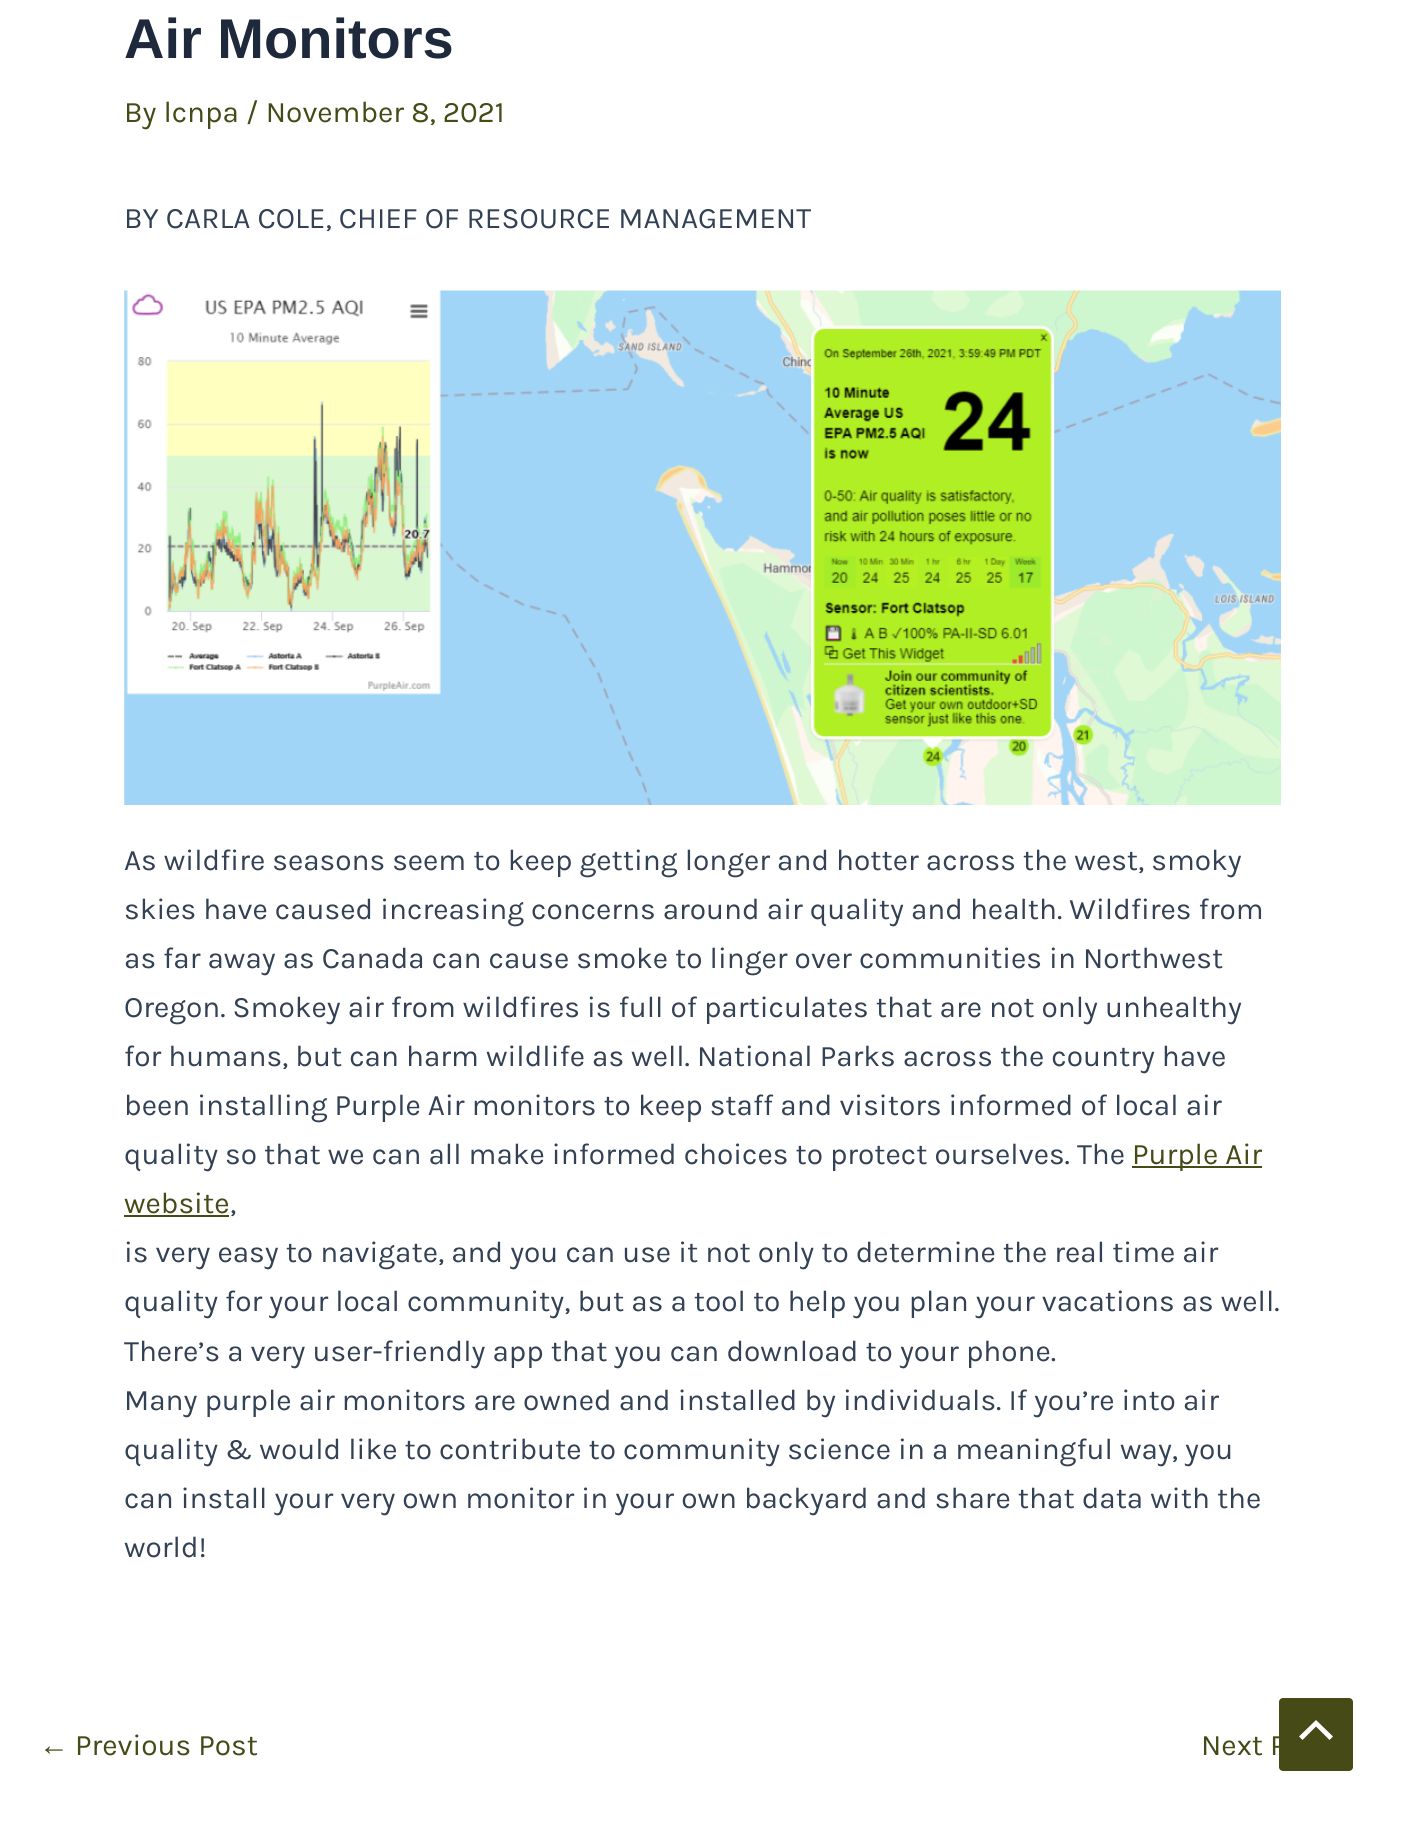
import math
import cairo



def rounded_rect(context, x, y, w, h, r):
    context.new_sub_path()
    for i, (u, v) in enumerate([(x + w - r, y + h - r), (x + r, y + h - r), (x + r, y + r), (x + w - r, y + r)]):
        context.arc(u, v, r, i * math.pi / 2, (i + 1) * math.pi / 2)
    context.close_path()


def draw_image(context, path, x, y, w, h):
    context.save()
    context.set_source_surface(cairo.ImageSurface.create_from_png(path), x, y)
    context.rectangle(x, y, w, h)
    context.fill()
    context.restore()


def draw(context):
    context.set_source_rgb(1, 1, 1)
    context.paint()
    draw_image(context, "images/1.png", 124, 290, 1157, 515)
    context.set_source_rgb(69 / 255, 74 / 255, 23 / 255)
    context.rectangle(1132, 1166, 130, 2)
    context.fill()
    context.rectangle(124, 1215, 105, 2)
    context.fill()
    rounded_rect(context, 1279, 1698, 74, 73, 4)
    context.fill()
    context.set_source_rgb(1, 1, 1)
    context.new_path()
    context.move_to(1333, 1736.5)
    context.line_to(1316, 1720)
    context.line_to(1299, 1736.5)
    context.line_to(1302.5, 1740)
    context.line_to(1316, 1726.5)
    context.line_to(1329.5, 1740)
    context.close_path()
    context.fill()
    context.select_font_face("Liberation Sans", cairo.FontSlant.NORMAL, cairo.FontWeight.BOLD)
    context.set_font_size(56)
    context.set_source_rgb(30 / 255, 41 / 255, 59 / 255)
    context.move_to(124, 58)
    context.show_text("Air Monitors")
    context.select_font_face("Karla")
    context.set_font_size(29.75)
    context.set_source_rgb(69 / 255, 74 / 255, 23 / 255)
    context.move_to(124, 122)
    context.show_text("By lcnpa / November 8, 2021")
    context.set_source_rgb(51 / 255, 65 / 255, 85 / 255)
    context.move_to(124, 228)
    context.show_text("BY CARLA COLE, CHIEF OF RESOURCE MANAGEMENT")
    context.move_to(124, 870)
    context.show_text("As wildfire seasons seem to keep getting longer and hotter across the west, smoky")
    context.move_to(124, 919)
    context.show_text("skies have caused increasing concerns around air quality and health. Wildfires from")
    context.move_to(124, 968)
    context.show_text("as far away as Canada can cause smoke to linger over communities in Northwest")
    context.move_to(124, 1017)
    context.show_text("Oregon. Smokey air from wildfires is full of particulates that are not only unhealthy")
    context.move_to(124, 1066)
    context.show_text("for humans, but can harm wildlife as well. National Parks across the country have")
    context.move_to(124, 1115)
    context.show_text("been installing Purple Air monitors to keep staff and visitors informed of local air")
    context.move_to(124, 1164)
    context.show_text("quality so that we can all make informed choices to protect ourselves. The")
    context.set_source_rgb(69 / 255, 74 / 255, 23 / 255)
    context.move_to(1132, 1164)
    context.show_text("Purple Air")
    context.move_to(124, 1213)
    context.show_text("website")
    context.set_source_rgb(51 / 255, 65 / 255, 85 / 255)
    context.move_to(230, 1213)
    context.show_text(",")
    context.move_to(124, 1262)
    context.show_text("is very easy to navigate, and you can use it not only to determine the real time air")
    context.move_to(124, 1311)
    context.show_text("quality for your local community, but as a tool to help you plan your vacations as well.")
    context.move_to(124, 1361)
    context.show_text("There’s a very user-friendly app that you can download to your phone.")
    context.move_to(124, 1410)
    context.show_text("Many purple air monitors are owned and installed by individuals. If you’re into air")
    context.move_to(124, 1459)
    context.show_text("quality & would like to contribute to community science in a meaningful way, you")
    context.move_to(124, 1508)
    context.show_text("can install your very own monitor in your own backyard and share that data with the")
    context.move_to(124, 1557)
    context.show_text("world!")
    context.select_font_face("Liberation Sans")
    context.set_source_rgb(69 / 255, 74 / 255, 23 / 255)
    context.move_to(39, 1755)
    context.show_text("←")
    context.select_font_face("Karla")
    context.move_to(75, 1755)
    context.show_text("Previous Post")
    context.move_to(1201, 1755)
    context.show_text("Next P")


surface = cairo.ImageSurface(cairo.Format.RGB24, 1404, 1822)
context = cairo.Context(surface)
options = cairo.FontOptions()
options.set_hint_metrics(cairo.HintMetrics.OFF)
options.set_hint_style(cairo.HintStyle.NONE)
context.set_font_options(options)
context.set_miter_limit(4)
draw(context)
surface.write_to_png("out.png")
